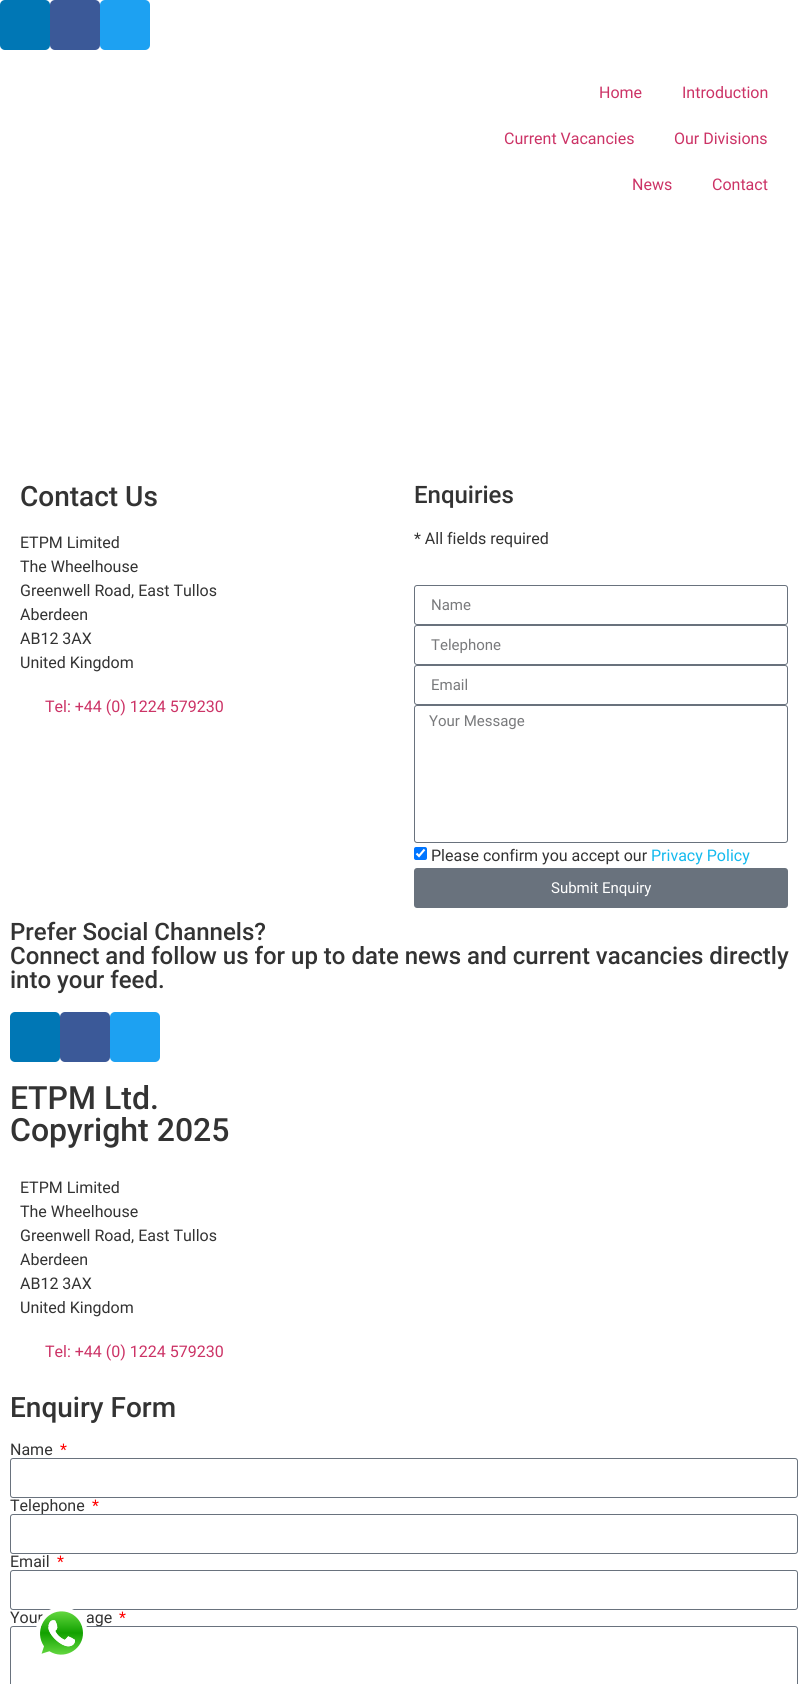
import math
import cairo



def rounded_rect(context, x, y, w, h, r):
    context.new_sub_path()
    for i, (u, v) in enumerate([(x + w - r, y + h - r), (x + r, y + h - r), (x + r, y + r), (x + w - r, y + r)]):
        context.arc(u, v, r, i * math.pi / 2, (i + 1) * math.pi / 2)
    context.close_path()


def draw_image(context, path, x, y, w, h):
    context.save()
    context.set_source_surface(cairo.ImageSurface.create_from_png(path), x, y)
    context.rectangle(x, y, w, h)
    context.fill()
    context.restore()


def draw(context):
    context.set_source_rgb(1, 1, 1)
    context.paint()
    context.set_source_rgb(0, 119 / 255, 181 / 255)
    rounded_rect(context, 0, 0, 50, 50, 5)
    context.fill()
    context.set_source_rgb(59 / 255, 89 / 255, 152 / 255)
    rounded_rect(context, 50, 0, 50, 50, 5)
    context.fill()
    context.set_source_rgb(29 / 255, 161 / 255, 242 / 255)
    rounded_rect(context, 100, 0, 50, 50, 5)
    context.fill()
    rounded_rect(context, 414.5, 585.5, 373, 39, 2.5)
    context.set_source_rgb(105 / 255, 114 / 255, 125 / 255)
    context.set_line_width(1)
    context.stroke()
    rounded_rect(context, 414.5, 625.5, 373, 39, 2.5)
    context.stroke()
    rounded_rect(context, 414.5, 665.5, 373, 39, 2.5)
    context.stroke()
    rounded_rect(context, 414.5, 705.5, 373, 137, 2.5)
    context.stroke()
    context.set_source_rgb(0, 117 / 255, 1)
    rounded_rect(context, 414, 847, 13, 13, 2)
    context.fill()
    context.new_path()
    context.move_to(416.5, 853.5)
    context.line_to(419, 856)
    context.line_to(424.5, 849.5)
    context.set_source_rgb(1, 1, 1)
    context.set_line_width(2.1)
    context.stroke()
    context.set_source_rgb(105 / 255, 114 / 255, 125 / 255)
    rounded_rect(context, 414, 868, 374, 40, 3)
    context.fill()
    context.set_source_rgb(0, 119 / 255, 181 / 255)
    rounded_rect(context, 10, 1012, 50, 50, 5)
    context.fill()
    context.set_source_rgb(59 / 255, 89 / 255, 152 / 255)
    rounded_rect(context, 60, 1012, 50, 50, 5)
    context.fill()
    context.set_source_rgb(29 / 255, 161 / 255, 242 / 255)
    rounded_rect(context, 110, 1012, 50, 50, 5)
    context.fill()
    rounded_rect(context, 10.5, 1458.5, 787, 39, 2.5)
    context.set_source_rgb(105 / 255, 114 / 255, 125 / 255)
    context.set_line_width(1)
    context.stroke()
    rounded_rect(context, 10.5, 1570.5, 787, 39, 2.5)
    context.stroke()
    context.select_font_face("Roboto")
    context.set_font_size(16)
    context.set_source_rgb(204 / 255, 51 / 255, 102 / 255)
    context.move_to(599, 98)
    context.show_text("Home")
    context.move_to(682, 98)
    context.show_text("Introduction")
    context.move_to(504, 144)
    context.show_text("Current Vacancies")
    context.move_to(674, 144)
    context.show_text("Our Divisions")
    context.move_to(632, 190)
    context.show_text("News")
    context.move_to(712, 190)
    context.show_text("Contact")
    context.select_font_face("Roboto Medium")
    context.set_font_size(28)
    context.set_source_rgb(51 / 255, 51 / 255, 51 / 255)
    context.move_to(20, 506)
    context.show_text("Contact Us")
    context.select_font_face("Roboto")
    context.set_font_size(16)
    context.move_to(20, 548)
    context.show_text("ETPM Limited")
    context.move_to(20, 572)
    context.show_text("The Wheelhouse")
    context.move_to(20, 596)
    context.show_text("Greenwell Road, East Tullos")
    context.move_to(20, 620)
    context.show_text("Aberdeen")
    context.move_to(20, 644)
    context.show_text("AB12 3AX")
    context.move_to(20, 668)
    context.show_text("United Kingdom")
    context.set_source_rgb(204 / 255, 51 / 255, 102 / 255)
    context.move_to(45, 712)
    context.show_text("Tel: +44 (0) 1224 579230")
    context.select_font_face("Roboto Medium")
    context.set_font_size(24)
    context.set_source_rgb(51 / 255, 51 / 255, 51 / 255)
    context.move_to(414, 503)
    context.show_text("Enquiries")
    context.select_font_face("Roboto")
    context.set_font_size(16)
    context.move_to(414, 544)
    context.show_text("* All fields required")
    context.set_font_size(15)
    context.set_source_rgb(121 / 255, 122 / 255, 124 / 255)
    context.move_to(431, 610)
    context.show_text("Name")
    context.move_to(431, 650)
    context.show_text("Telephone")
    context.move_to(431, 690)
    context.show_text("Email")
    context.move_to(429, 726)
    context.show_text("Your Message")
    context.set_font_size(16)
    context.set_source_rgb(51 / 255, 51 / 255, 51 / 255)
    context.move_to(431, 861)
    context.show_text("Please confirm you accept our")
    context.set_source_rgb(20 / 255, 186 / 255, 238 / 255)
    context.move_to(651, 861)
    context.show_text("Privacy Policy")
    context.set_font_size(15)
    context.set_source_rgb(1, 1, 1)
    context.move_to(551, 893)
    context.show_text("Submit Enquiry")
    context.select_font_face("Roboto Medium")
    context.set_font_size(24)
    context.set_source_rgb(51 / 255, 51 / 255, 51 / 255)
    context.move_to(10, 940)
    context.show_text("Prefer Social Channels?")
    context.move_to(10, 964)
    context.show_text("Connect and follow us for up to date news and current vacancies directly")
    context.move_to(10, 988)
    context.show_text("into your feed.")
    context.set_font_size(32)
    context.move_to(10, 1109)
    context.show_text("ETPM Ltd.")
    context.move_to(10, 1141)
    context.show_text("Copyright 2025")
    context.select_font_face("Roboto")
    context.set_font_size(16)
    context.move_to(20, 1193)
    context.show_text("ETPM Limited")
    context.move_to(20, 1217)
    context.show_text("The Wheelhouse")
    context.move_to(20, 1241)
    context.show_text("Greenwell Road, East Tullos")
    context.move_to(20, 1265)
    context.show_text("Aberdeen")
    context.move_to(20, 1289)
    context.show_text("AB12 3AX")
    context.move_to(20, 1313)
    context.show_text("United Kingdom")
    context.set_source_rgb(204 / 255, 51 / 255, 102 / 255)
    context.move_to(45, 1357)
    context.show_text("Tel: +44 (0) 1224 579230")
    context.select_font_face("Roboto Medium")
    context.set_font_size(28)
    context.set_source_rgb(51 / 255, 51 / 255, 51 / 255)
    context.move_to(10, 1417)
    context.show_text("Enquiry Form")
    context.select_font_face("Roboto")
    context.set_font_size(16)
    context.move_to(10, 1455)
    context.show_text("Name")
    context.set_source_rgb(1, 0, 0)
    context.move_to(60, 1455)
    context.show_text("*")
    context.set_source_rgb(51 / 255, 51 / 255, 51 / 255)
    context.move_to(10, 1511)
    context.show_text("Telephone")
    context.set_source_rgb(1, 0, 0)
    context.move_to(92, 1511)
    context.show_text("*")
    rounded_rect(context, 10.5, 1514.5, 787, 39, 2.5)
    context.set_source_rgb(105 / 255, 114 / 255, 125 / 255)
    context.stroke()
    context.set_source_rgb(51 / 255, 51 / 255, 51 / 255)
    context.move_to(10, 1567)
    context.show_text("Email")
    context.set_source_rgb(1, 0, 0)
    context.move_to(57, 1567)
    context.show_text("*")
    context.set_source_rgb(51 / 255, 51 / 255, 51 / 255)
    context.move_to(10, 1623)
    context.show_text("Your")
    context.move_to(86, 1623)
    context.show_text("age")
    context.set_source_rgb(1, 0, 0)
    context.move_to(119, 1623)
    context.show_text("*")
    rounded_rect(context, 10.5, 1626.5, 787, 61, 2.5)
    context.set_source_rgb(105 / 255, 114 / 255, 125 / 255)
    context.stroke()
    draw_image(context, "images/1.png", 36, 1609, 51, 46)


surface = cairo.ImageSurface(cairo.Format.RGB24, 808, 1684)
context = cairo.Context(surface)
options = cairo.FontOptions()
options.set_hint_metrics(cairo.HintMetrics.OFF)
options.set_hint_style(cairo.HintStyle.NONE)
context.set_font_options(options)
context.set_miter_limit(4)
draw(context)
surface.write_to_png("out.png")
